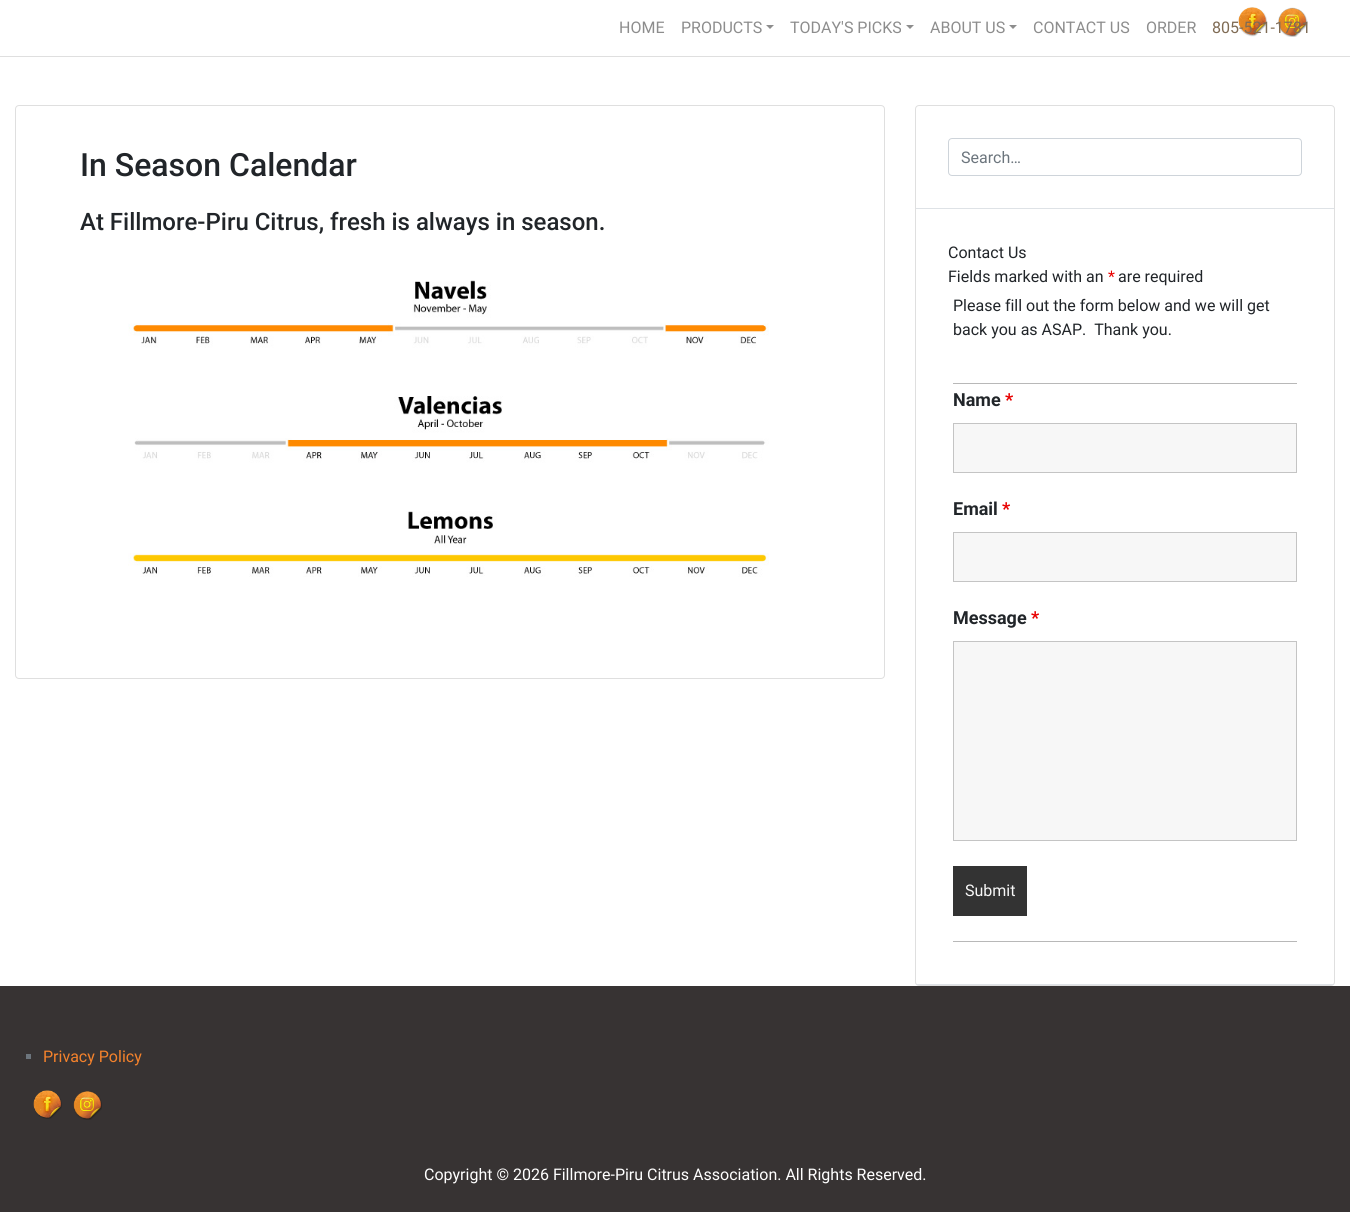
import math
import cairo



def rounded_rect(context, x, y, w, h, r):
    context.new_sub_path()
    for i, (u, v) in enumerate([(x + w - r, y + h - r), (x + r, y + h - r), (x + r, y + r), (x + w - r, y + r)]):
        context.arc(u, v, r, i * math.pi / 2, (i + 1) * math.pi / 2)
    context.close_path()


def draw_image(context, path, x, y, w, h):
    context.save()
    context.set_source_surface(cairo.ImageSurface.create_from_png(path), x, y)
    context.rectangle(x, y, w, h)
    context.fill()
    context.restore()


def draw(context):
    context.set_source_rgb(1, 1, 1)
    context.paint()
    context.set_source_rgb(223 / 255, 223 / 255, 223 / 255)
    context.rectangle(0, 56, 1350, 1)
    context.fill()
    draw_image(context, "images/1.png", 1238, 7, 29, 30)
    draw_image(context, "images/2.png", 1278, 7, 30, 30)
    context.set_source_rgb(141 / 255, 141 / 255, 141 / 255)
    context.new_path()
    context.move_to(766, 25)
    context.line_to(774, 25)
    context.line_to(770, 29)
    context.close_path()
    context.fill()
    context.new_path()
    context.move_to(906, 25)
    context.line_to(914, 25)
    context.line_to(910, 29)
    context.close_path()
    context.fill()
    context.new_path()
    context.move_to(1009, 25)
    context.line_to(1017, 25)
    context.line_to(1013, 29)
    context.close_path()
    context.fill()
    rounded_rect(context, 15.5, 105.5, 869, 573, 3.5)
    context.set_source_rgb(223 / 255, 223 / 255, 223 / 255)
    context.set_line_width(1)
    context.stroke()
    draw_image(context, "images/3.png", 128, 280, 641, 297)
    rounded_rect(context, 915.5, 105.5, 419, 880, 3.5)
    context.stroke()
    context.set_source_rgb(222 / 255, 226 / 255, 230 / 255)
    context.rectangle(916, 208, 418, 1)
    context.fill()
    rounded_rect(context, 948.5, 138.5, 353, 37, 3.5)
    context.set_source_rgb(206 / 255, 212 / 255, 218 / 255)
    context.stroke()
    context.set_source_rgb(222 / 255, 226 / 255, 230 / 255)
    context.rectangle(916, 984, 418, 1)
    context.fill()
    context.set_source_rgb(184 / 255, 184 / 255, 184 / 255)
    context.rectangle(953, 383, 344, 1)
    context.fill()
    context.set_source_rgb(247 / 255, 247 / 255, 247 / 255)
    context.rectangle(953.5, 423.5, 343, 49)
    context.fill_preserve()
    context.set_source_rgb(196 / 255, 196 / 255, 196 / 255)
    context.stroke()
    context.set_source_rgb(247 / 255, 247 / 255, 247 / 255)
    context.rectangle(953.5, 532.5, 343, 49)
    context.fill_preserve()
    context.set_source_rgb(196 / 255, 196 / 255, 196 / 255)
    context.stroke()
    context.set_source_rgb(247 / 255, 247 / 255, 247 / 255)
    context.rectangle(953.5, 641.5, 343, 199)
    context.fill_preserve()
    context.set_source_rgb(196 / 255, 196 / 255, 196 / 255)
    context.stroke()
    context.set_source_rgb(51 / 255, 51 / 255, 51 / 255)
    context.rectangle(953, 866, 74, 50)
    context.fill()
    context.set_source_rgb(184 / 255, 184 / 255, 184 / 255)
    context.rectangle(953, 941, 344, 1)
    context.fill()
    context.set_source_rgb(55 / 255, 51 / 255, 51 / 255)
    context.rectangle(0, 986, 1350, 226)
    context.fill()
    context.set_source_rgb(108 / 255, 117 / 255, 125 / 255)
    context.rectangle(26, 1054, 5, 5)
    context.fill()
    draw_image(context, "images/4.png", 33, 1090, 29, 29)
    draw_image(context, "images/5.png", 73, 1091, 29, 29)
    context.select_font_face("Roboto")
    context.set_font_size(16)
    context.set_source_rgb(141 / 255, 141 / 255, 141 / 255)
    context.move_to(619, 33)
    context.show_text("HOME")
    context.move_to(681, 33)
    context.show_text("PRODUCTS")
    context.move_to(790, 33)
    context.show_text("TODAY'S PICKS")
    context.move_to(930, 33)
    context.show_text("ABOUT US")
    context.move_to(1033, 33)
    context.show_text("CONTACT US")
    context.move_to(1146, 33)
    context.show_text("ORDER")
    context.set_source_rgb(127 / 255, 107 / 255, 84 / 255)
    context.move_to(1212, 33)
    context.show_text("805-521-1781")
    context.select_font_face("Roboto Medium")
    context.set_font_size(32)
    context.set_source_rgb(33 / 255, 37 / 255, 41 / 255)
    context.move_to(80, 176)
    context.show_text("In Season Calendar")
    context.set_font_size(24)
    context.move_to(80, 230)
    context.show_text("At Fillmore-Piru Citrus, fresh is always in season.")
    context.select_font_face("Roboto")
    context.set_font_size(16)
    context.set_source_rgb(108 / 255, 117 / 255, 125 / 255)
    context.move_to(961, 163)
    context.show_text("Search…")
    context.set_source_rgb(33 / 255, 37 / 255, 41 / 255)
    context.move_to(948, 258)
    context.show_text("Contact Us")
    context.move_to(948, 282)
    context.show_text("Fields marked with an")
    context.set_source_rgb(232 / 255, 0, 0)
    context.move_to(1108, 282)
    context.show_text("*")
    context.set_source_rgb(33 / 255, 37 / 255, 41 / 255)
    context.move_to(1118, 282)
    context.show_text("are required")
    context.move_to(953, 311)
    context.show_text("Please fill out the form below and we will get")
    context.move_to(953, 335)
    context.show_text("back you as ASAP.  Thank you.")
    context.select_font_face("Roboto", cairo.FontSlant.NORMAL, cairo.FontWeight.BOLD)
    context.set_font_size(18)
    context.move_to(953, 406)
    context.show_text("Name")
    context.set_source_rgb(232 / 255, 0, 0)
    context.move_to(1005, 406)
    context.show_text("*")
    context.set_source_rgb(33 / 255, 37 / 255, 41 / 255)
    context.move_to(953, 515)
    context.show_text("Email")
    context.set_source_rgb(232 / 255, 0, 0)
    context.move_to(1002, 515)
    context.show_text("*")
    context.set_source_rgb(33 / 255, 37 / 255, 41 / 255)
    context.move_to(953, 624)
    context.show_text("Message")
    context.set_source_rgb(232 / 255, 0, 0)
    context.move_to(1031, 624)
    context.show_text("*")
    context.select_font_face("Roboto")
    context.set_font_size(16)
    context.set_source_rgb(247 / 255, 247 / 255, 247 / 255)
    context.move_to(965, 896)
    context.show_text("Submit")
    context.set_source_rgb(245 / 255, 130 / 255, 43 / 255)
    context.move_to(43, 1062)
    context.show_text("Privacy Policy")
    context.set_source_rgb(1, 1, 1)
    context.move_to(424, 1180)
    context.show_text("Copyright © 2026 Fillmore-Piru Citrus Association. All Rights Reserved.")


surface = cairo.ImageSurface(cairo.Format.RGB24, 1350, 1212)
context = cairo.Context(surface)
options = cairo.FontOptions()
options.set_hint_metrics(cairo.HintMetrics.OFF)
options.set_hint_style(cairo.HintStyle.NONE)
context.set_font_options(options)
context.set_miter_limit(4)
draw(context)
surface.write_to_png("out.png")
